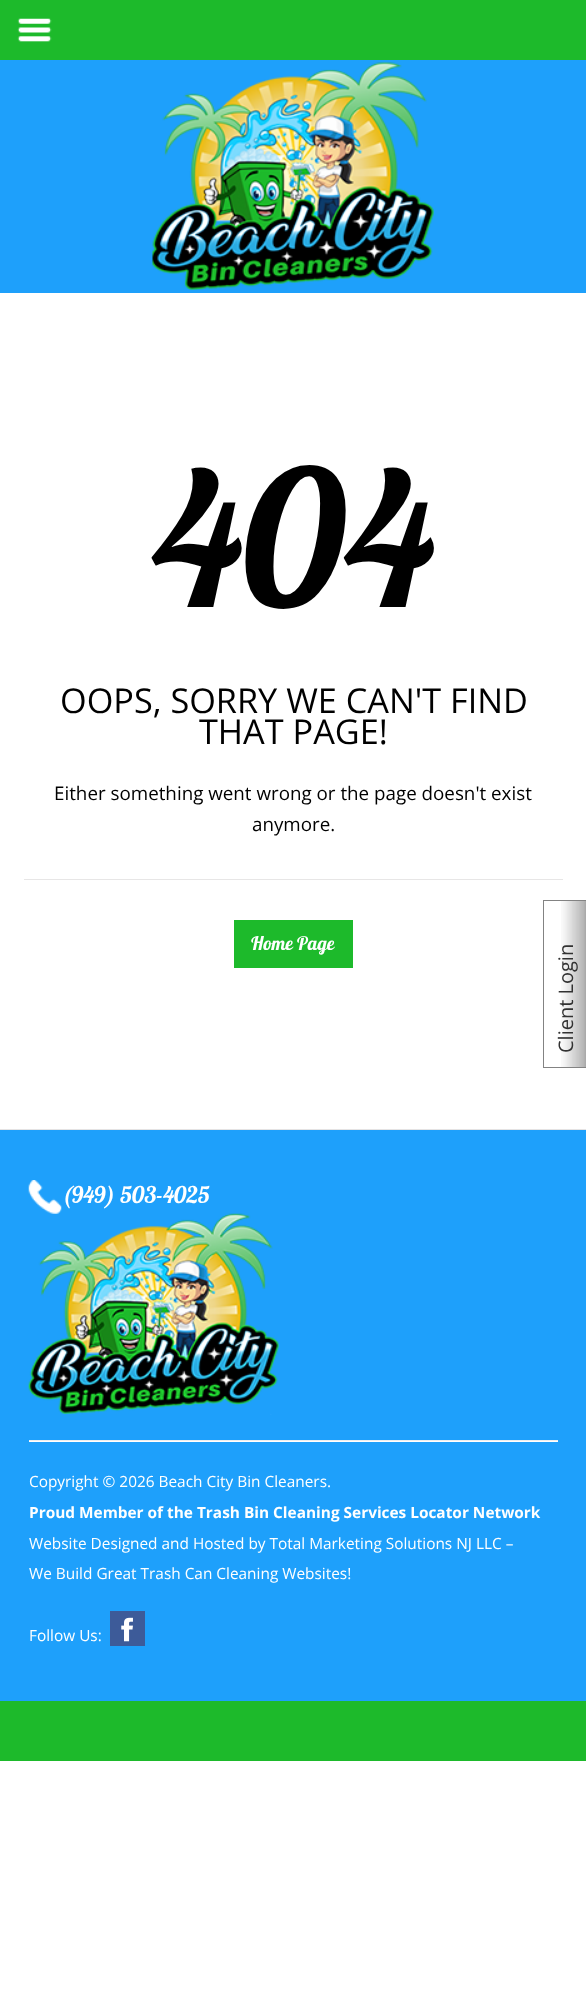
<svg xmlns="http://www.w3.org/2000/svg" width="586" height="2000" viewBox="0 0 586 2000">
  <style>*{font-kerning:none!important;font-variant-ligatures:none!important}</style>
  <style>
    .t1 { font: 188px Lobster; fill: #000; }
    .t2 { font: 34.25px Open Sans; fill: #000; }
    .t3 { font: 18.8px Open Sans; fill: #000; }
    .t4 { font: 18.75px Lobster; fill: #fff; }
    .t5 { font: 23px Lobster; fill: #fff; }
    .t6 { font: 15.4px Open Sans; fill: #fff; }
    .t7 { font: bold 15.4px Open Sans; fill: #fff; }
    .t8 { font: 20px Open Sans; fill: #323232; }
  </style>
  <rect width="100%" height="100%" fill="#fff"/>
  <rect x="0" y="0" width="586" height="60" fill="#1dba2b"/>
  <image x="17" y="18" width="35" height="24" href="images/1.png"/>
  <rect x="0" y="60" width="586" height="233" fill="#1ea0fb"/>
  <image x="152" y="62" width="282" height="228" href="images/2.png"/>
  <rect x="0" y="1129" width="586" height="1" fill="#e5e3e3"/>
  <text x="152" y="607" class="t1">404</text>
  <text x="60" y="713" class="t2">OOPS, SORRY WE CAN'T FIND</text>
  <text x="199" y="744" class="t2">THAT PAGE!</text>
  <rect x="24" y="879" width="539" height="1" fill="#e7e6e6"/>
  <text x="54" y="800" class="t3">Either something went wrong or the page doesn't exist</text>
  <text x="252" y="831" class="t3">anymore.</text>
  <rect x="234" y="920" width="119" height="48" fill="#1dba2b"/>
  <text x="251" y="950" class="t4">Home Page</text>
  <rect x="0" y="1130" width="586" height="571" fill="#1ea0fb"/>
  <image x="28" y="1180" width="34" height="34" href="images/3.png"/>
  <text x="62" y="1203" class="t5">(949) 503-4025</text>
  <image x="28" y="1213" width="251" height="202" href="images/4.png"/>
  <rect x="29" y="1440" width="529" height="1" fill="#eee"/>
  <rect x="29" y="1441" width="529" height="1" fill="#fff"/>
  <text x="29" y="1487" class="t6">Copyright © 2026 Beach City Bin Cleaners.</text>
  <text x="29" y="1518" class="t7">Proud Member of the Trash Bin Cleaning Services Locator Network</text>
  <text x="29" y="1549" class="t6">Website Designed and Hosted by Total Marketing Solutions NJ LLC –</text>
  <text x="29" y="1579" class="t6">We Build Great Trash Can Cleaning Websites!</text>
  <text x="29" y="1641" class="t6">Follow Us:</text>
  <rect x="110" y="1611" width="35" height="35" fill="#3d5b99"/>
  <image x="121" y="1617" width="12" height="25" href="images/5.png"/>
  <rect x="0" y="1701" width="586" height="60" fill="#1dba2b"/>
  <image x="561" y="901" width="25" height="166" href="images/6.png"/>
  <rect x="543.5" y="900.5" width="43" height="167" fill="none" stroke="#838383"/>
  <text x="573" y="1053" transform="rotate(-90 573 1053)" class="t8">Client Login</text>
</svg>
